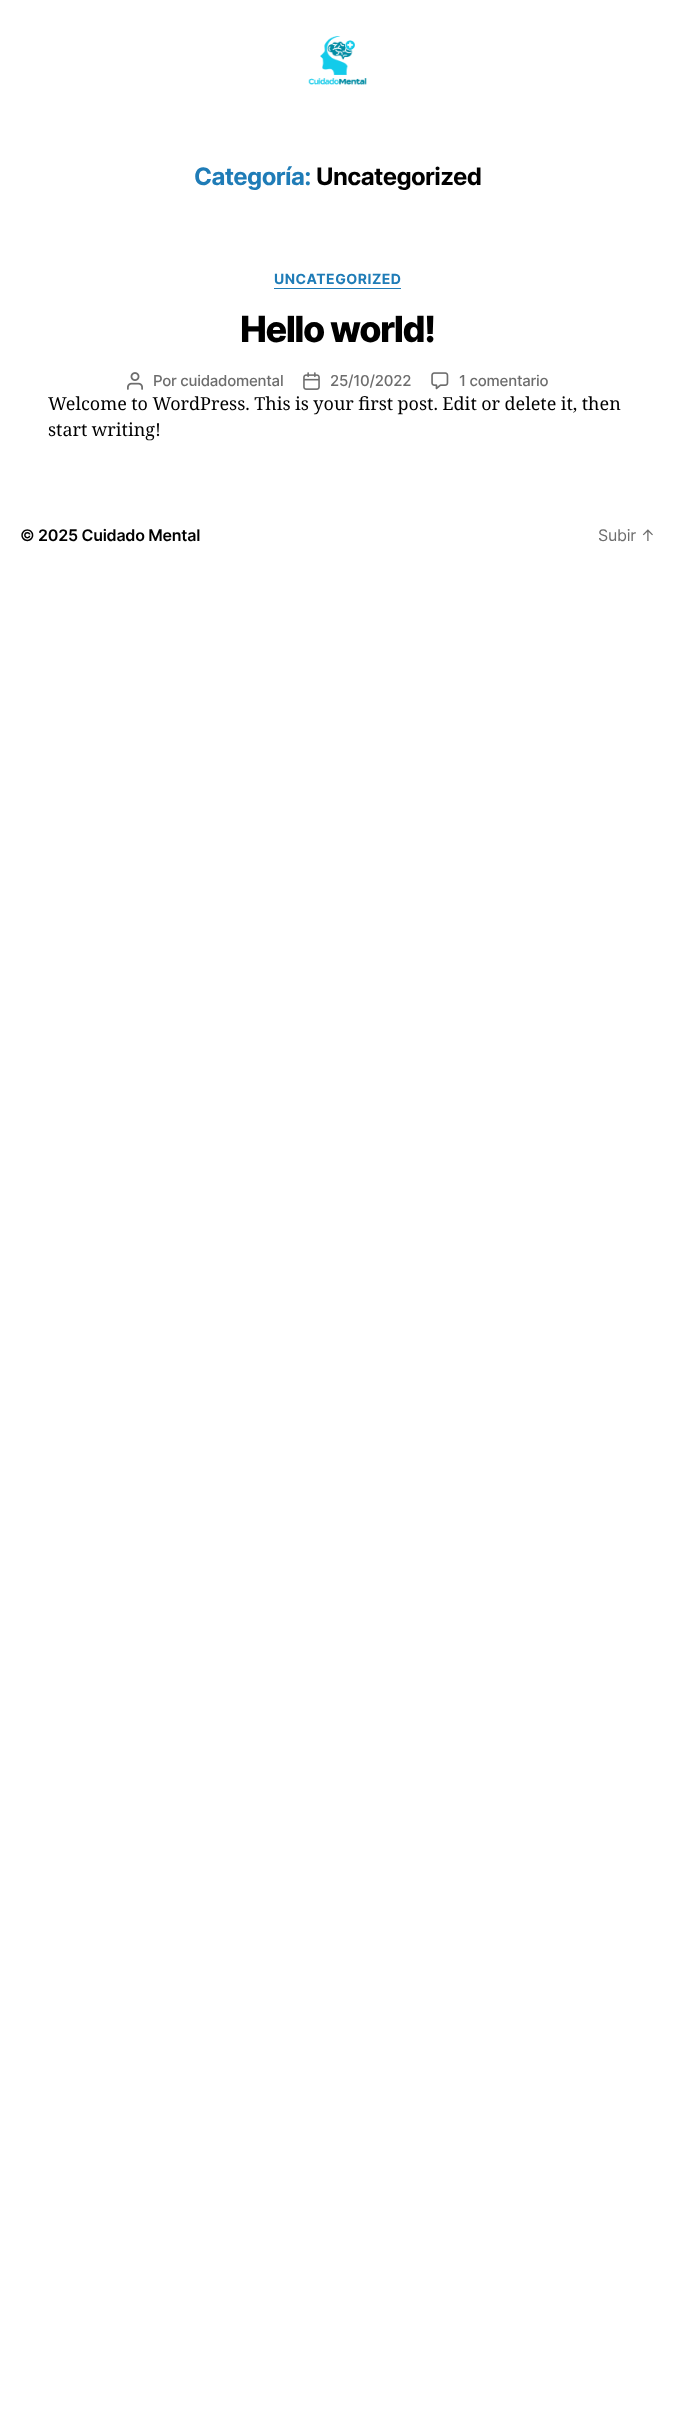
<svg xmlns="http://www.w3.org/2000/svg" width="675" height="2412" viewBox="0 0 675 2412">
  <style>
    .t1 { font: bold 24px Inter; letter-spacing: -0.6px; fill: #1f7cb7; }
    .t2 { font: bold 24px Inter; letter-spacing: -0.6px; fill: #000; }
    .t3 { font: bold 14px Inter; letter-spacing: 0.5px; fill: #1f7cb7; }
    .t4 { font: 800 36px Inter; letter-spacing: -1.5px; fill: #000; }
    .t5 { font: 500 15px Inter; letter-spacing: -0.25px; fill: #6d6d6d; }
    .t6 { font: 18px Noto Serif; fill: #000; }
    .t7 { font: 600 16px Inter; letter-spacing: -0.25px; fill: #000; }
    .t8 { font: 16px Inter; letter-spacing: -0.25px; fill: #6d6d6d; }
  </style>
  <rect width="100%" height="100%" fill="#fff"/>
  <image x="308" y="36" width="59" height="49" href="images/1.png"/>
  <text x="194" y="185" class="t1">Categoría:</text>
  <text x="316" y="185" class="t2">Uncategorized</text>
  <rect x="274" y="288" width="127" height="1" fill="#1f7cb7"/>
  <text x="274" y="284" class="t3">UNCATEGORIZED</text>
  <text x="240" y="342" class="t4">Hello world!</text>
  <image x="127" y="372" width="16" height="18" href="images/2.png"/>
  <text x="153" y="386" class="t5">Por cuidadomental</text>
  <image x="303" y="372" width="17" height="18" href="images/3.png"/>
  <text x="330" y="386" class="t5">25/10/2022</text>
  <image x="431" y="372" width="18" height="18" href="images/4.png"/>
  <text x="459" y="386" class="t5">1 comentario</text>
  <text x="48" y="410" word-spacing="-0.25" class="t6">Welcome to WordPress. This is your first post. Edit or delete it, then</text>
  <text x="48" y="436" word-spacing="-0.25" class="t6">start writing!</text>
  <text x="20" y="541" class="t7">© 2025 Cuidado Mental</text>
  <text x="598" y="541" class="t8">Subir ↑</text>
</svg>
